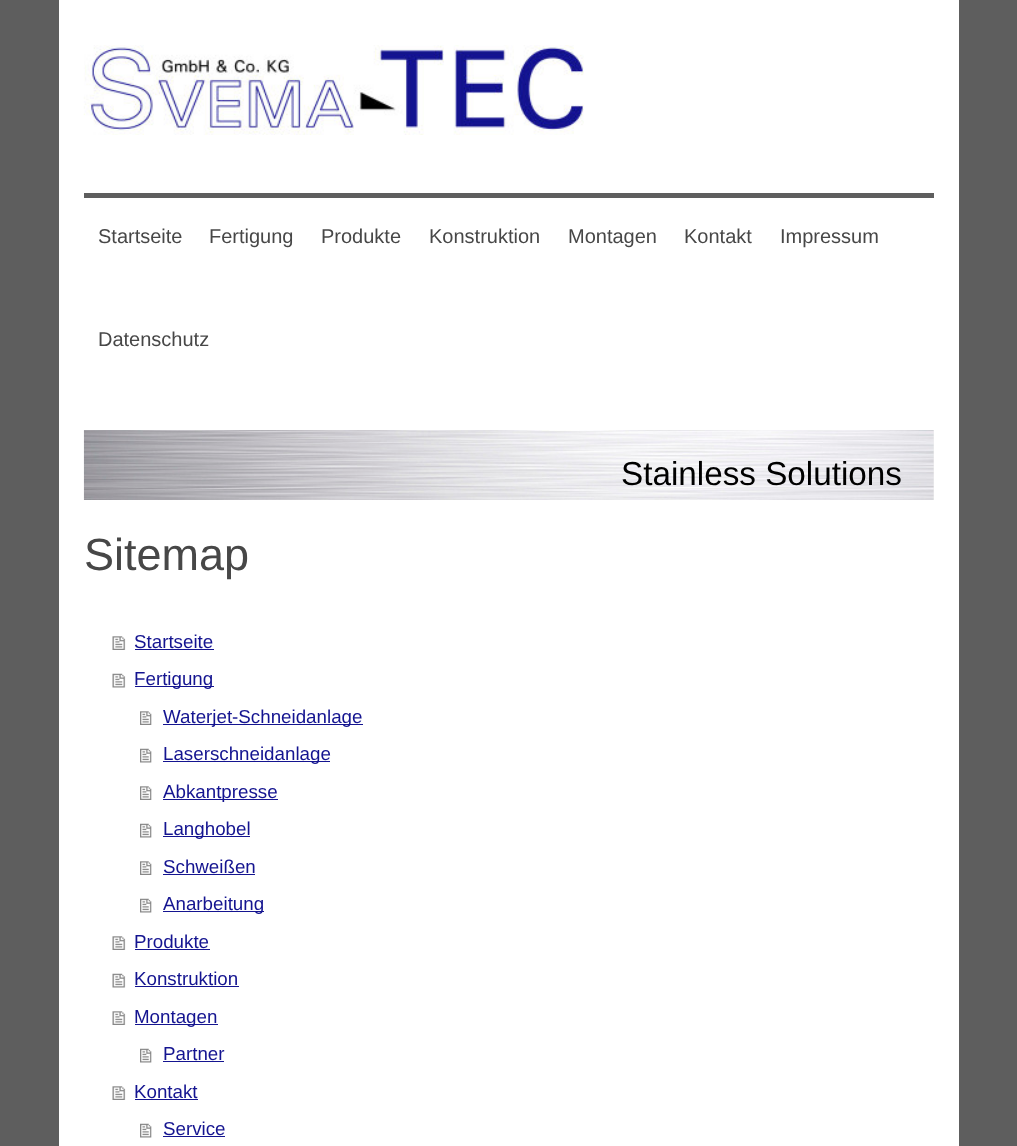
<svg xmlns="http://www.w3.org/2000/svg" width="1017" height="1146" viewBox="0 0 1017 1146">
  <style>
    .t1 { font: 20px Liberation Sans; fill: #474747; }
    .t2 { font: 33.25px Liberation Sans; fill: #000; }
    .t3 { font: 45px Liberation Sans; fill: #474747; }
    .t4 { font: 18.75px Liberation Sans; fill: #141490; }
  </style>
  <rect width="100%" height="100%" fill="#5e5e5e"/>
  <rect x="59" y="0" width="900" height="1146" fill="#fff"/>
  <image x="83" y="45" width="501" height="90" href="images/1.png"/>
  <rect x="84" y="193" width="850" height="5" fill="#5e5e5e"/>
  <text x="98" y="243" class="t1">Startseite</text>
  <text x="209" y="243" class="t1">Fertigung</text>
  <text x="321" y="243" class="t1">Produkte</text>
  <text x="429" y="243" class="t1">Konstruktion</text>
  <text x="568" y="243" class="t1">Montagen</text>
  <text x="684" y="243" class="t1">Kontakt</text>
  <text x="780" y="243" class="t1">Impressum</text>
  <text x="98" y="346" class="t1">Datenschutz</text>
  <rect x="933" y="430" width="1" height="70" fill="#eee"/>
  <image x="83" y="430" width="851" height="70" href="images/2.png"/>
  <text x="621" y="485" class="t2">Stainless Solutions</text>
  <text x="84" y="570" class="t3">Sitemap</text>
  <image x="112" y="636" width="14" height="14" href="images/3.png"/>
  <text x="134" y="648" class="t4">Startseite</text>
  <rect x="135" y="649" width="79" height="1" fill="#141490"/>
  <image x="112" y="673" width="14" height="15" href="images/4.png"/>
  <rect x="135" y="686" width="79" height="1" fill="#141490"/>
  <text x="134" y="685" class="t4">Fertigung</text>
  <image x="140" y="711" width="12" height="14" href="images/5.png"/>
  <rect x="163" y="724" width="200" height="1" fill="#141490"/>
  <text x="163" y="723" class="t4">Waterjet-Schneidanlage</text>
  <image x="140" y="748" width="12" height="15" href="images/6.png"/>
  <rect x="163" y="761" width="167" height="1" fill="#141490"/>
  <text x="163" y="760" class="t4">Laserschneidanlage</text>
  <image x="140" y="786" width="12" height="14" href="images/5.png"/>
  <rect x="163" y="799" width="115" height="1" fill="#141490"/>
  <text x="163" y="798" class="t4">Abkantpresse</text>
  <image x="140" y="823" width="12" height="15" href="images/6.png"/>
  <rect x="163" y="836" width="87" height="1" fill="#141490"/>
  <text x="163" y="835" class="t4">Langhobel</text>
  <image x="140" y="861" width="12" height="14" href="images/5.png"/>
  <text x="163" y="873" class="t4">Schweißen</text>
  <rect x="163" y="874" width="92" height="1" fill="#141490"/>
  <image x="140" y="898" width="12" height="15" href="images/6.png"/>
  <rect x="163" y="911" width="101" height="1" fill="#141490"/>
  <text x="163" y="910" class="t4">Anarbeitung</text>
  <image x="112" y="936" width="14" height="14" href="images/3.png"/>
  <text x="134" y="948" class="t4">Produkte</text>
  <rect x="135" y="949" width="75" height="1" fill="#141490"/>
  <image x="112" y="973" width="14" height="15" href="images/4.png"/>
  <text x="134" y="985" class="t4">Konstruktion</text>
  <rect x="135" y="986" width="104" height="1" fill="#141490"/>
  <image x="112" y="1011" width="14" height="14" href="images/3.png"/>
  <rect x="135" y="1024" width="83" height="1" fill="#141490"/>
  <text x="134" y="1023" class="t4">Montagen</text>
  <image x="140" y="1048" width="12" height="15" href="images/6.png"/>
  <text x="163" y="1060" class="t4">Partner</text>
  <rect x="163" y="1061" width="61" height="1" fill="#141490"/>
  <image x="112" y="1086" width="14" height="14" href="images/3.png"/>
  <text x="134" y="1098" class="t4">Kontakt</text>
  <rect x="135" y="1099" width="63" height="1" fill="#141490"/>
  <image x="140" y="1123" width="12" height="15" href="images/6.png"/>
  <text x="163" y="1135" class="t4">Service</text>
  <rect x="163" y="1136" width="62" height="1" fill="#141490"/>
</svg>
